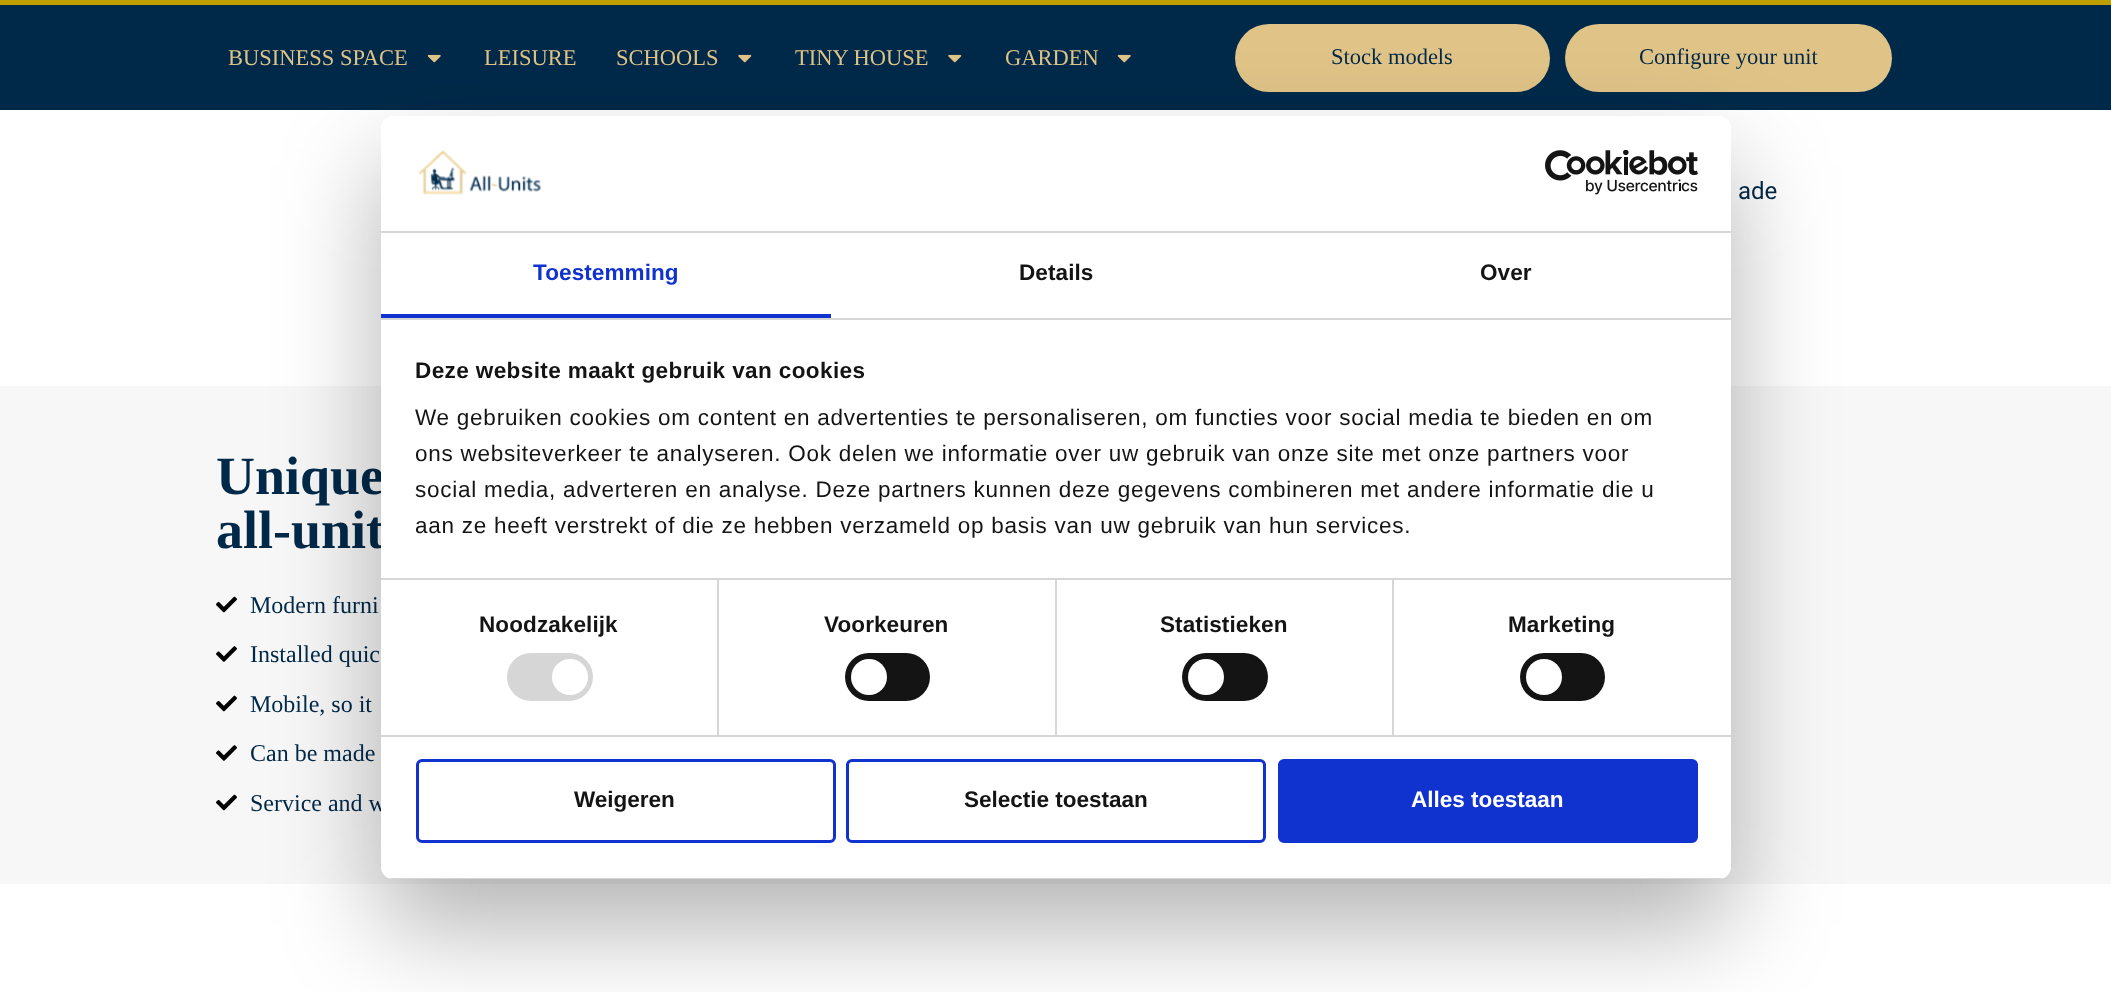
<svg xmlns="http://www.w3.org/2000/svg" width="2111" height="992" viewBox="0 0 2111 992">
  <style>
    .t1 { font: 22.5px Liberation Serif; fill: #e0c387; }
    .t2 { font: 22.5px Liberation Serif; fill: #002949; }
    .t3 { font: 24px Roboto; fill: #002949; }
    .t4 { font: bold 54px Liberation Serif; fill: #002949; }
    .t5 { font: 24px Liberation Serif; fill: #002949; }
    .t6 { font: bold 22.5px Liberation Sans; letter-spacing: 0.1px; fill: #1032cf; }
    .t7 { font: bold 22.5px Liberation Sans; letter-spacing: 0.1px; fill: #141414; }
    .t8 { font: bold 22.5px Liberation Sans; letter-spacing: 0.4px; fill: #141414; }
    .t9 { font: 22.5px Liberation Sans; letter-spacing: 0.75px; fill: #141414; }
    .t10 { font: bold 22.5px Liberation Sans; fill: #141414; }
    .t11 { font: bold 22.5px Liberation Sans; fill: #fff; }
  </style>
  <defs>
    <clipPath id="clip1"><rect x="381" y="116" width="1350" height="763" rx="12"/></clipPath>
  </defs>
  <rect width="100%" height="100%" fill="#fff"/>
  <rect x="0" y="5" width="2111" height="105" fill="#002949"/>
  <rect x="0" y="0" width="2111" height="5" fill="#bf9f00"/>
  <text x="228" y="65" class="t1">BUSINESS SPACE</text>
  <image x="427" y="54" width="14" height="9" href="images/1.png"/>
  <text x="484" y="65" class="t1">LEISURE</text>
  <text x="616" y="65" class="t1">SCHOOLS</text>
  <image x="738" y="54" width="14" height="9" href="images/2.png"/>
  <text x="795" y="65" class="t1">TINY HOUSE</text>
  <image x="948" y="54" width="14" height="9" href="images/2.png"/>
  <text x="1005" y="65" class="t1">GARDEN</text>
  <image x="1117" y="54" width="14" height="9" href="images/1.png"/>
  <rect x="1235" y="24" width="315" height="68" rx="34" fill="#e0c387"/>
  <text x="1331" y="64" class="t2">Stock models</text>
  <rect x="1565" y="24" width="327" height="68" rx="34" fill="#e0c387"/>
  <text x="1639" y="64" class="t2">Configure your unit</text>
  <text x="1738" y="199" class="t3">ade</text>
  <rect x="0" y="386" width="2111" height="498" fill="#f7f7f7"/>
  <text x="216" y="494" class="t4">Unique</text>
  <text x="216" y="548" class="t4">all-unit</text>
  <image x="216" y="596" width="21" height="17" href="images/3.png"/>
  <text x="250" y="613" class="t5">Modern furni</text>
  <image x="216" y="646" width="21" height="16" href="images/4.png"/>
  <text x="250" y="662" class="t5">Installed quic</text>
  <image x="216" y="695" width="21" height="17" href="images/3.png"/>
  <text x="250" y="712" class="t5">Mobile, so it</text>
  <image x="216" y="745" width="21" height="16" href="images/4.png"/>
  <text x="250" y="761" class="t5">Can be made</text>
  <image x="216" y="794" width="21" height="17" href="images/3.png"/>
  <text x="250" y="811" class="t5">Service and w</text>
  <rect x="381" y="164" width="1350" height="763" rx="12" fill="#0000004d" filter="blur(51px)"/>
  <rect x="381" y="116" width="1350" height="763" rx="12" fill="#fff"/>
  <rect x="381" y="231" width="1350" height="2" fill="#d6d6d6"/>
  <image x="418" y="150" width="124" height="45" href="images/5.png"/>
  <image x="1545" y="150" width="153" height="45" href="images/6.png"/>
  <rect x="381" y="318" width="1350" height="2" fill="#d6d6d6"/>
  <rect x="381" y="314" width="450" height="4" fill="#1032cf"/>
  <text x="533" y="280" class="t6">Toestemming</text>
  <text x="1019" y="280" class="t7">Details</text>
  <text x="1480" y="280" class="t7">Over</text>
  <rect x="717" y="579" width="2" height="156" fill="#d6d6d6"/>
  <rect x="1055" y="579" width="2" height="156" fill="#d6d6d6"/>
  <rect x="1392" y="579" width="2" height="156" fill="#d6d6d6"/>
  <rect x="381" y="578" width="1350" height="2" fill="#d6d6d6"/>
  <text x="415" y="378" class="t8">Deze website maakt gebruik van cookies</text>
  <text x="415" y="425" class="t9">We gebruiken cookies om content en advertenties te personaliseren, om functies voor social media te bieden en om</text>
  <text x="415" y="461" class="t9">ons websiteverkeer te analyseren. Ook delen we informatie over uw gebruik van onze site met onze partners voor</text>
  <text x="415" y="497" class="t9">social media, adverteren en analyse. Deze partners kunnen deze gegevens combineren met andere informatie die u</text>
  <text x="415" y="533" class="t9">aan ze heeft verstrekt of die ze hebben verzameld op basis van uw gebruik van hun services.</text>
  <rect x="381" y="735" width="1350" height="2" fill="#d6d6d6"/>
  <text x="479" y="632" class="t7">Noodzakelijk</text>
  <rect x="507" y="653" width="86" height="48" rx="24" fill="#d6d6d6"/>
  <circle cx="570" cy="677" r="18" fill="#fff"/>
  <text x="824" y="632" class="t7">Voorkeuren</text>
  <rect x="845" y="653" width="85" height="48" rx="24" fill="#141414"/>
  <circle cx="869" cy="677" r="18" fill="#fff"/>
  <text x="1160" y="632" class="t7">Statistieken</text>
  <rect x="1182" y="653" width="86" height="48" rx="24" fill="#141414"/>
  <circle cx="1206" cy="677" r="18" fill="#fff"/>
  <text x="1508" y="632" class="t7">Marketing</text>
  <rect x="1520" y="653" width="85" height="48" rx="24" fill="#141414"/>
  <circle cx="1544" cy="677" r="18" fill="#fff"/>
  <g clip-path="url(#clip1)">
    <rect x="381" y="878" width="1350" height="1" fill="#d6d6d6"/>
  </g>
  <rect x="417.5" y="760.5" width="417" height="81" rx="4.5" fill="none" stroke="#1032cf" stroke-width="3"/>
  <text x="574" y="807" class="t10">Weigeren</text>
  <rect x="847.5" y="760.5" width="417" height="81" rx="4.5" fill="none" stroke="#1032cf" stroke-width="3"/>
  <text x="964" y="807" class="t10">Selectie toestaan</text>
  <rect x="1279.5" y="760.5" width="417" height="81" rx="4.5" fill="#1032cf" stroke="#1032cf" stroke-width="3"/>
  <text x="1411" y="807" class="t11">Alles toestaan</text>
</svg>
